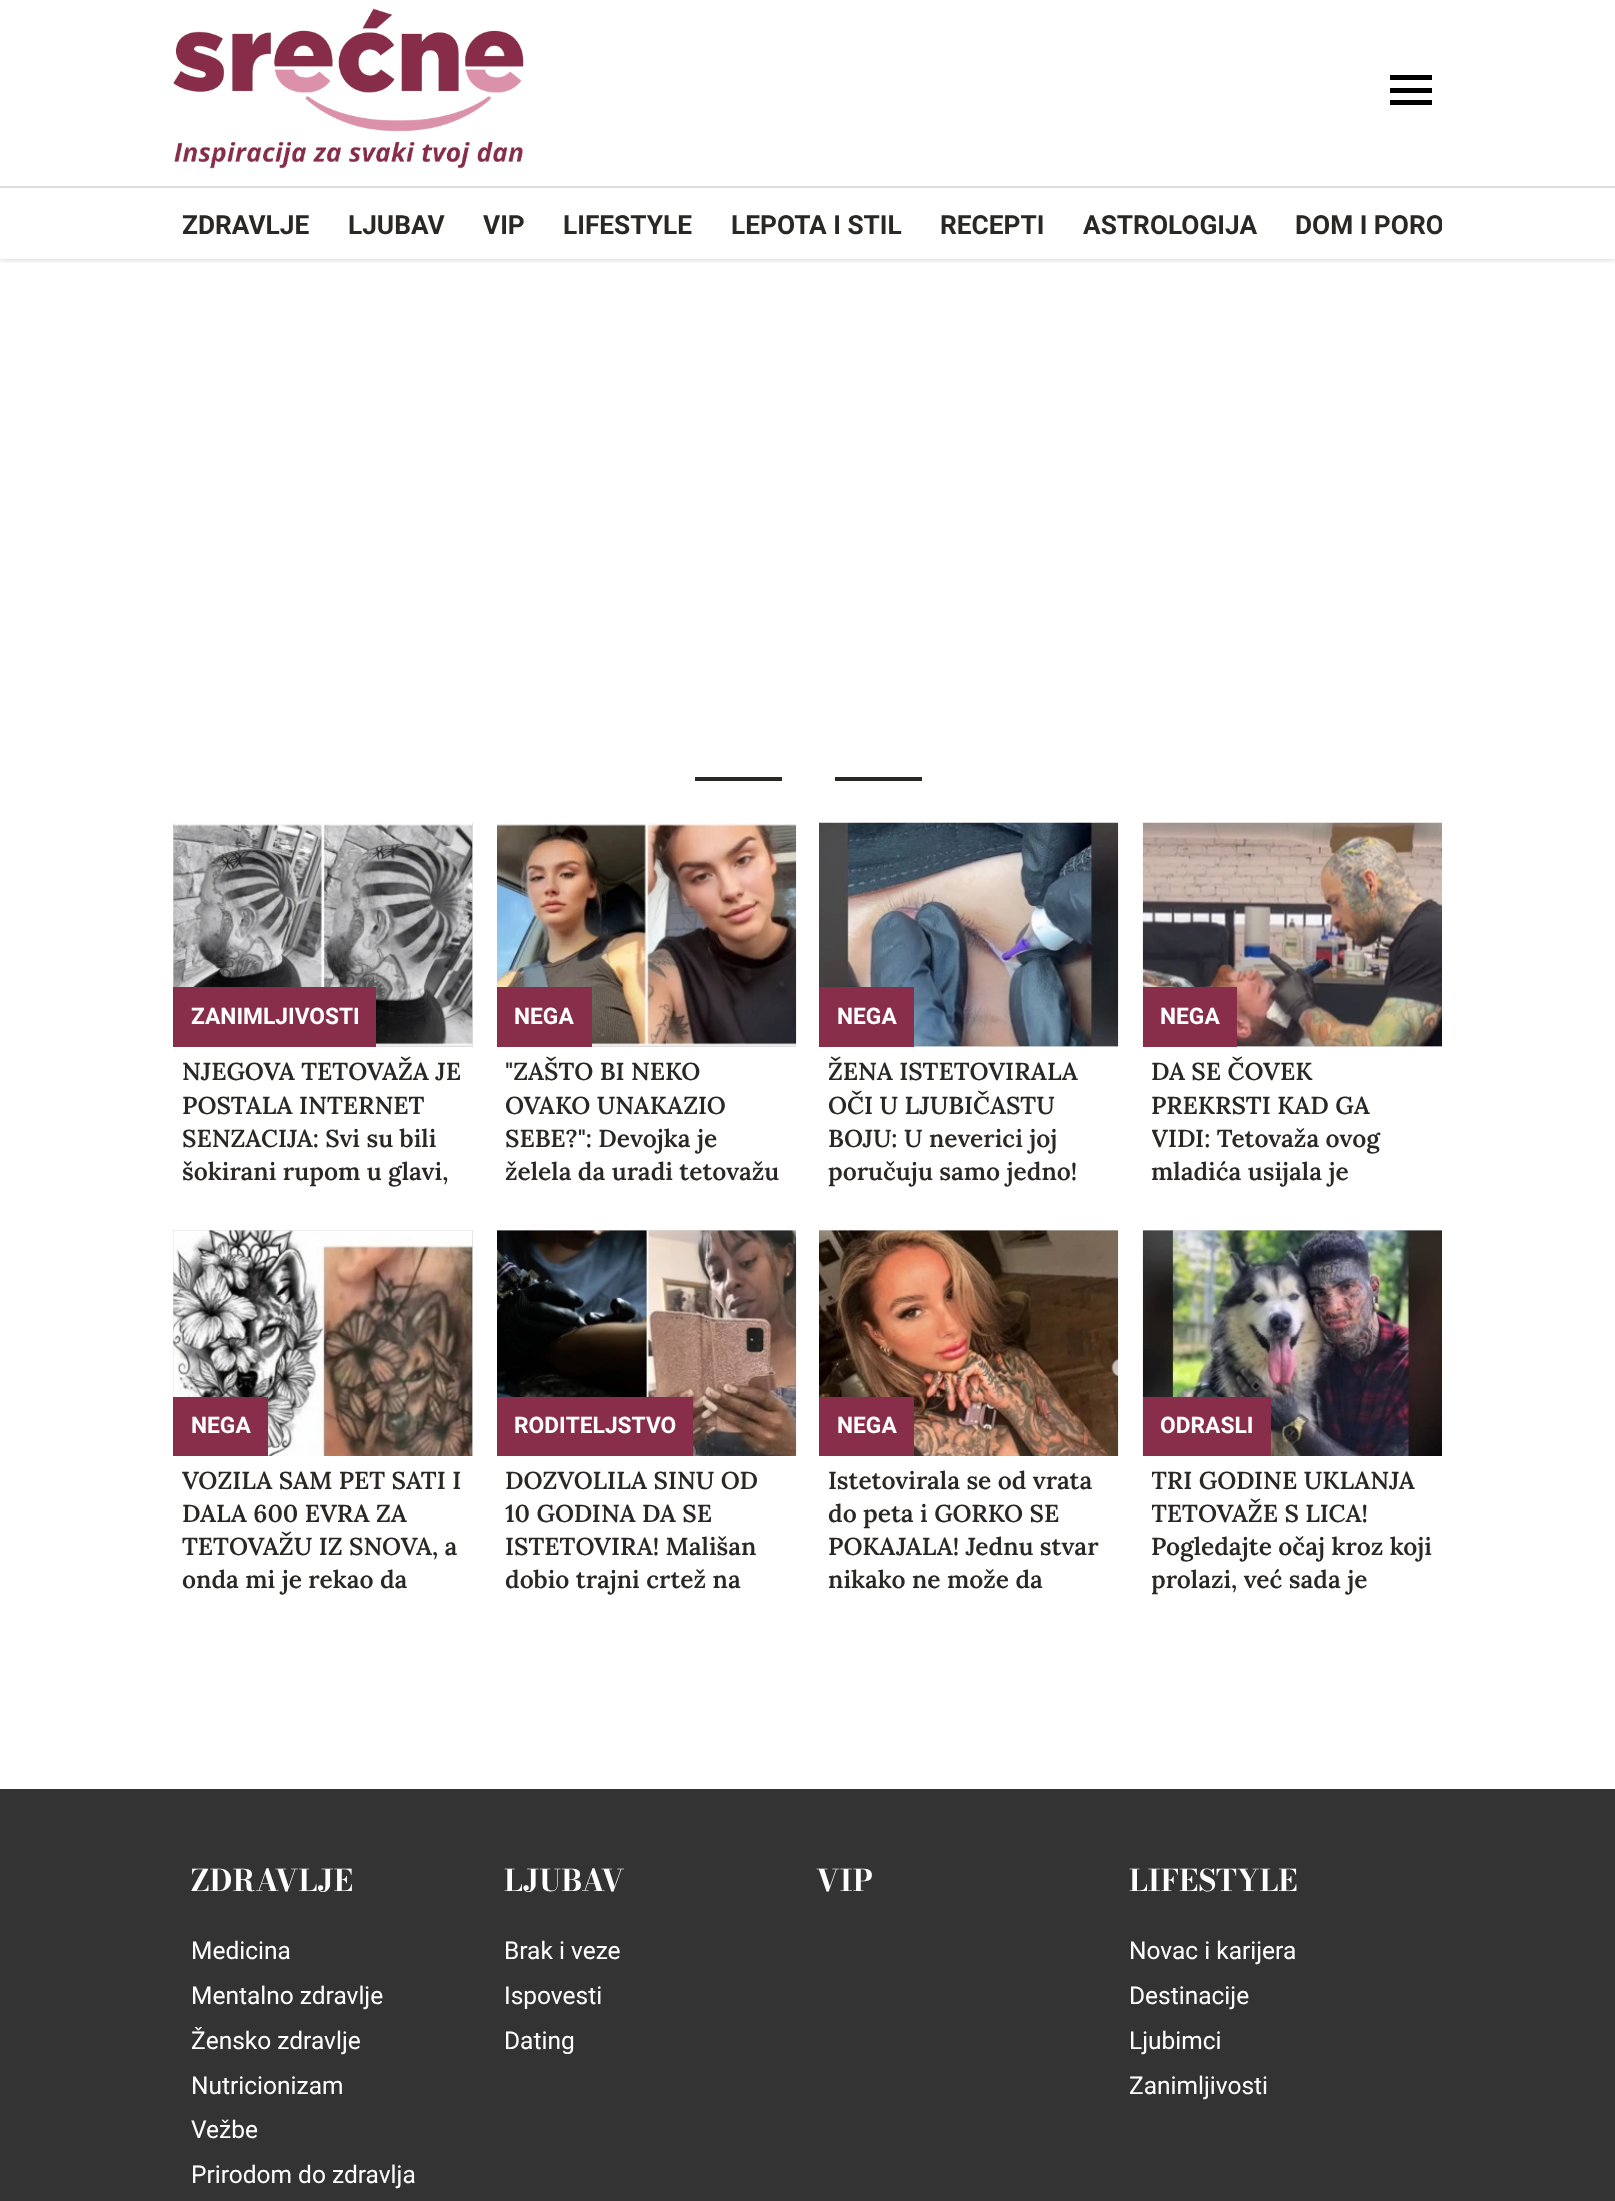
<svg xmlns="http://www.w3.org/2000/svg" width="1615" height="2201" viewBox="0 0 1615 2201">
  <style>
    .t1 { font: bold 26.25px Roboto; fill: #2a2825; }
    .t2 { font: bold 22.75px Heebo; fill: #fff; }
    .t3 { font: 600 24.5px Lora; fill: #2a2825; }
    .t4 { font: bold 29.75px Bodoni Moda; fill: #fff; }
    .t5 { font: 24.5px Roboto; fill: #fff; }
  </style>
  <defs>
    <clipPath id="clip1"><rect x="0" y="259" width="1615" height="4"/></clipPath>
    <clipPath id="clip2"><rect x="173" y="187" width="1269" height="74"/></clipPath>
    <clipPath id="clip3"><rect x="1152" y="1055" width="281" height="133"/></clipPath>
    <clipPath id="clip4"><rect x="1152" y="1465" width="281" height="133"/></clipPath>
  </defs>
  <rect width="100%" height="100%" fill="#fff"/>
  <g clip-path="url(#clip1)">
    <rect x="0" y="0" width="1615" height="259" fill="#00000033" filter="blur(3.5px)"/>
  </g>
  <rect x="0" y="186" width="1615" height="2" fill="#ddd"/>
  <image x="173" y="8" width="351" height="161" href="images/1.png"/>
  <rect x="1390" y="75" width="42" height="5" fill="#000"/>
  <rect x="1390" y="88" width="42" height="5" fill="#000"/>
  <rect x="1390" y="100" width="42" height="5" fill="#000"/>
  <text x="182" y="234" class="t1">ZDRAVLJE</text>
  <text x="348" y="234" class="t1">LJUBAV</text>
  <text x="483" y="234" class="t1">VIP</text>
  <text x="563" y="234" class="t1">LIFESTYLE</text>
  <text x="731" y="234" class="t1">LEPOTA I STIL</text>
  <text x="940" y="234" class="t1">RECEPTI</text>
  <text x="1083" y="234" class="t1">ASTROLOGIJA</text>
  <g clip-path="url(#clip2)">
    <text x="1295" y="234" class="t1">DOM I PORO</text>
  </g>
  <rect x="695" y="777" width="87" height="4" fill="#2a2825"/>
  <rect x="835" y="777" width="87" height="4" fill="#2a2825"/>
  <rect x="173" y="823" width="300" height="224" fill="#ddd"/>
  <image x="173" y="823" width="300" height="223" href="images/2.png"/>
  <rect x="173" y="987" width="203" height="60" fill="#882d4a"/>
  <text x="191" y="1024" class="t2">ZANIMLJIVOSTI</text>
  <text x="182" y="1080" class="t3">NJEGOVA TETOVAŽA JE</text>
  <text x="182" y="1114" class="t3">POSTALA INTERNET</text>
  <text x="182" y="1147" class="t3">SENZACIJA: Svi su bili</text>
  <text x="182" y="1180" class="t3">šokirani rupom u glavi,</text>
  <rect x="592" y="1046" width="204" height="1" fill="#ddd"/>
  <image x="497" y="823" width="300" height="223" href="images/3.png"/>
  <rect x="497" y="987" width="95" height="60" fill="#882d4a"/>
  <text x="514" y="1024" class="t2">NEGA</text>
  <text x="505" y="1080" class="t3">"ZAŠTO BI NEKO</text>
  <text x="505" y="1114" class="t3">OVAKO UNAKAZIO</text>
  <text x="505" y="1147" class="t3">SEBE?": Devojka je</text>
  <text x="505" y="1180" class="t3">želela da uradi tetovažu</text>
  <rect x="914" y="1046" width="204" height="1" fill="#ddd"/>
  <image x="819" y="822" width="300" height="225" href="images/4.png"/>
  <rect x="819" y="987" width="95" height="60" fill="#882d4a"/>
  <text x="837" y="1024" class="t2">NEGA</text>
  <text x="828" y="1080" class="t3">ŽENA ISTETOVIRALA</text>
  <text x="828" y="1114" class="t3">OČI U LJUBIČASTU</text>
  <text x="828" y="1147" class="t3">BOJU: U neverici joj</text>
  <text x="828" y="1180" class="t3">poručuju samo jedno!</text>
  <rect x="1237" y="1046" width="205" height="1" fill="#ddd"/>
  <image x="1142" y="822" width="300" height="225" href="images/5.png"/>
  <rect x="1143" y="987" width="94" height="60" fill="#882d4a"/>
  <text x="1160" y="1024" class="t2">NEGA</text>
  <text x="1151" y="1080" class="t3">DA SE ČOVEK</text>
  <text x="1151" y="1114" class="t3">PREKRSTI KAD GA</text>
  <g clip-path="url(#clip3)">
    <text x="1151" y="1147" class="t3">VIDI: Tetovaža ovog</text>
  </g>
  <text x="1151" y="1180" class="t3">mladića usijala je</text>
  <rect x="173" y="1230" width="300" height="226" fill="#ddd"/>
  <image x="173" y="1230" width="300" height="226" href="images/6.png"/>
  <rect x="173" y="1397" width="95" height="59" fill="#882d4a"/>
  <text x="191" y="1433" class="t2">NEGA</text>
  <text x="182" y="1489" class="t3">VOZILA SAM PET SATI I</text>
  <text x="182" y="1522" class="t3">DALA 600 EVRA ZA</text>
  <text x="182" y="1555" class="t3">TETOVAŽU IZ SNOVA, a</text>
  <text x="182" y="1588" class="t3">onda mi je rekao da</text>
  <rect x="497" y="1230" width="299" height="1" fill="#ddd"/>
  <image x="497" y="1230" width="300" height="226" href="images/7.png"/>
  <rect x="497" y="1397" width="196" height="59" fill="#882d4a"/>
  <text x="514" y="1433" class="t2">RODITELJSTVO</text>
  <text x="505" y="1489" class="t3">DOZVOLILA SINU OD</text>
  <text x="505" y="1522" class="t3">10 GODINA DA SE</text>
  <text x="505" y="1555" class="t3">ISTETOVIRA! Mališan</text>
  <text x="505" y="1588" class="t3">dobio trajni crtež na</text>
  <rect x="819" y="1230" width="299" height="1" fill="#ddd"/>
  <image x="819" y="1230" width="300" height="226" href="images/8.png"/>
  <rect x="819" y="1397" width="95" height="59" fill="#882d4a"/>
  <text x="837" y="1433" class="t2">NEGA</text>
  <text x="828" y="1489" class="t3">Istetovirala se od vrata</text>
  <text x="828" y="1522" class="t3">do peta i GORKO SE</text>
  <text x="828" y="1555" class="t3">POKAJALA! Jednu stvar</text>
  <text x="828" y="1588" class="t3">nikako ne može da</text>
  <rect x="1143" y="1230" width="299" height="1" fill="#ddd"/>
  <image x="1142" y="1230" width="300" height="226" href="images/9.png"/>
  <rect x="1143" y="1397" width="128" height="59" fill="#882d4a"/>
  <text x="1160" y="1433" class="t2">ODRASLI</text>
  <g clip-path="url(#clip4)">
    <text x="1151" y="1489" class="t3">TRI GODINE UKLANJA</text>
    <text x="1151" y="1522" class="t3">TETOVAŽE S LICA!</text>
  </g>
  <text x="1151" y="1555" class="t3">Pogledajte očaj kroz koji</text>
  <g clip-path="url(#clip4)">
    <text x="1151" y="1588" class="t3">prolazi, već sada je</text>
  </g>
  <rect x="0" y="1789" width="1615" height="412" fill="#333"/>
  <text x="191" y="1891" class="t4">ZDRAVLJE</text>
  <text x="191" y="1959" class="t5">Medicina</text>
  <text x="191" y="2004" class="t5">Mentalno zdravlje</text>
  <text x="191" y="2049" class="t5">Žensko zdravlje</text>
  <text x="191" y="2094" class="t5">Nutricionizam</text>
  <text x="191" y="2138" class="t5">Vežbe</text>
  <text x="191" y="2183" class="t5">Prirodom do zdravlja</text>
  <text x="504" y="1891" class="t4">LJUBAV</text>
  <text x="504" y="1959" class="t5">Brak i veze</text>
  <text x="504" y="2004" class="t5">Ispovesti</text>
  <text x="504" y="2049" class="t5">Dating</text>
  <text x="816" y="1891" class="t4">VIP</text>
  <text x="1129" y="1891" class="t4">LIFESTYLE</text>
  <text x="1129" y="1959" class="t5">Novac i karijera</text>
  <text x="1129" y="2004" class="t5">Destinacije</text>
  <text x="1129" y="2049" class="t5">Ljubimci</text>
  <text x="1129" y="2094" class="t5">Zanimljivosti</text>
</svg>
